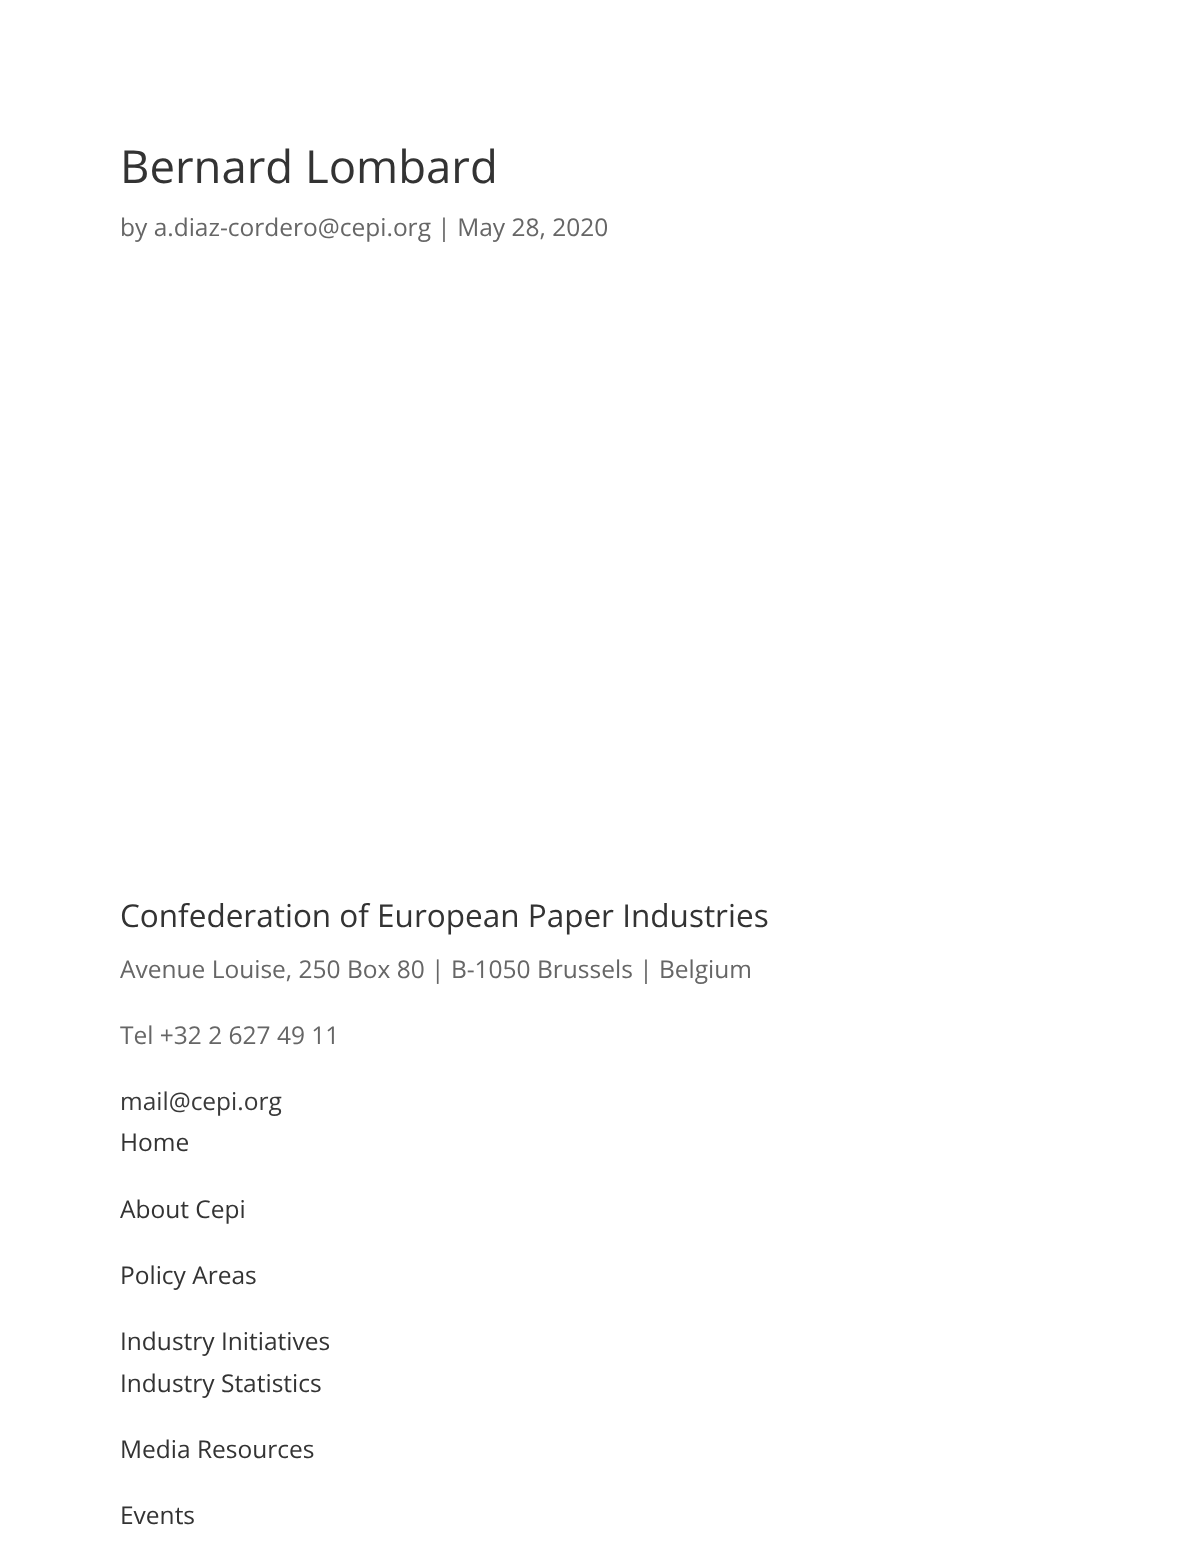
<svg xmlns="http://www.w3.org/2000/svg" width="1197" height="1545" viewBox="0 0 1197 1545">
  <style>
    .t1 { font: 45.5px Open Sans; fill: #333; }
    .t2 { font: 24.5px Open Sans; fill: #666; }
    .t3 { font: 31.5px Open Sans; fill: #333; }
    .t4 { font: 24.5px Open Sans; fill: #393939; }
    .t5 { font: 24.5px Open Sans; fill: #333; }
  </style>
  <rect width="100%" height="100%" fill="#fff"/>
  <text x="120" y="183" class="t1">Bernard Lombard</text>
  <text x="120" y="236" class="t2">by a.diaz-cordero@cepi.org | May 28, 2020</text>
  <text x="120" y="927" class="t3">Confederation of European Paper Industries</text>
  <text x="120" y="978" class="t2">Avenue Louise, 250 Box 80 | B-1050 Brussels | Belgium</text>
  <text x="120" y="1044" class="t2">Tel +32 2 627 49 11</text>
  <text x="120" y="1110" class="t4">mail@cepi.org</text>
  <text x="120" y="1151" class="t5">Home</text>
  <text x="120" y="1218" class="t5">About Cepi</text>
  <text x="120" y="1284" class="t5">Policy Areas</text>
  <text x="120" y="1350" class="t5">Industry Initiatives</text>
  <text x="120" y="1392" class="t5">Industry Statistics</text>
  <text x="120" y="1458" class="t5">Media Resources</text>
  <text x="120" y="1524" class="t5">Events</text>
</svg>
